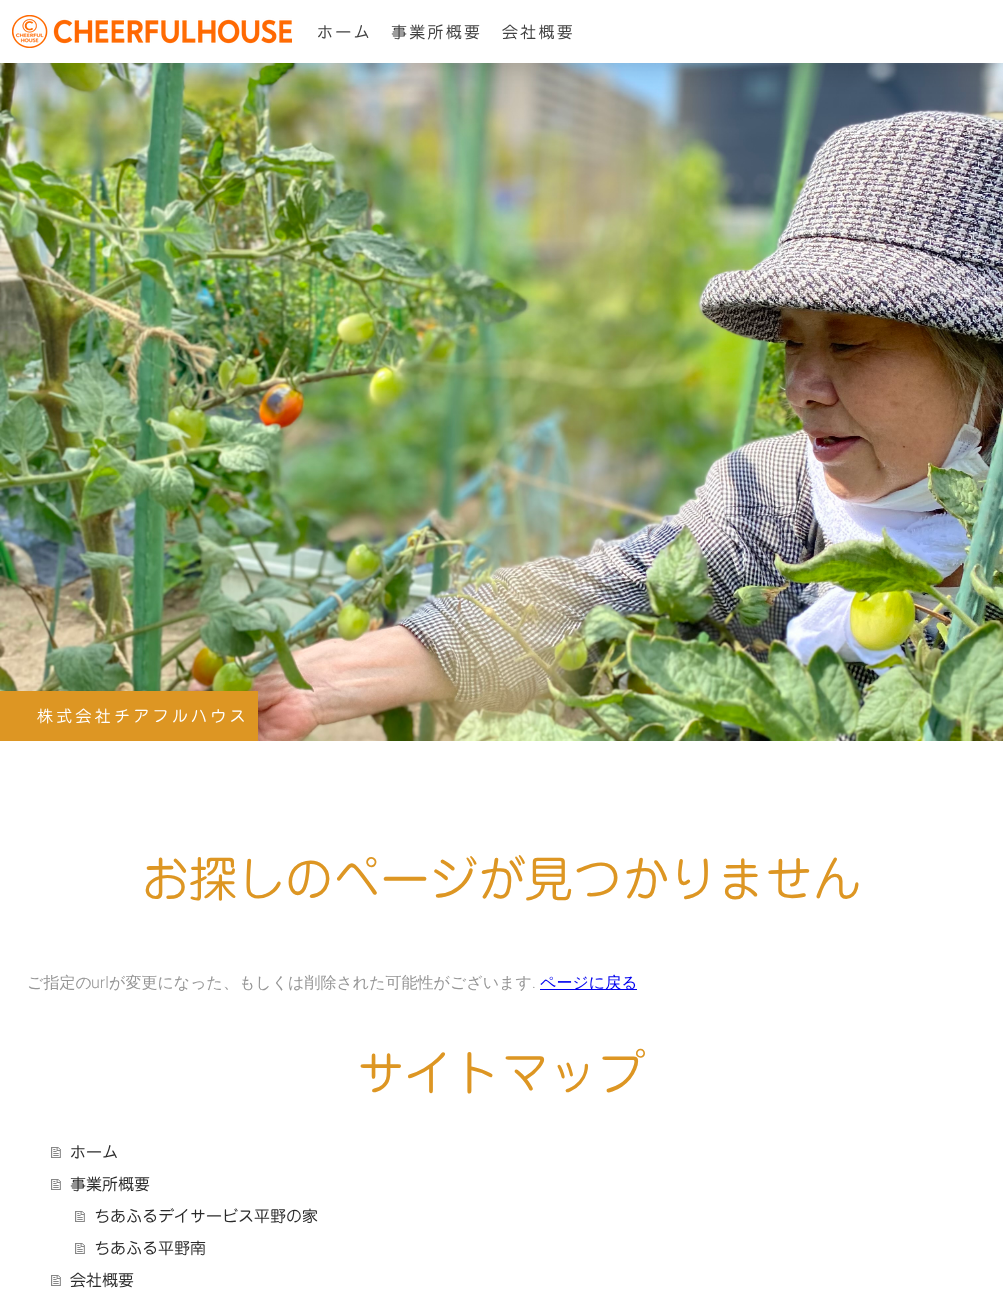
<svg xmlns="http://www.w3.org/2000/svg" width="1003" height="1300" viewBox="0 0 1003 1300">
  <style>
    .t1 { font: 16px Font; letter-spacing: 2.25px; fill: #404040; }
    .t2 { font: 16px Font; letter-spacing: 3.25px; fill: #fff; }
    .t3 { font: 48px Font; fill: #dd9623; }
    .t4 { font: 500 16px WenQuanYi Zen Hei; fill: #969696; }
    .t5 { font: 300 16px Roboto; fill: #969696; }
    .t6 { font: 500 16px WenQuanYi Zen Hei; fill: #00e; }
    .t7 { font: 16px Font; fill: #2a2a2a; }
  </style>
  <rect width="100%" height="100%" fill="#fff"/>
  <image x="0" y="63" width="1003" height="678" href="images/2.png"/>
  <rect x="0" y="0" width="1003" height="63" fill="#00000033" filter="blur(15px)"/>
  <rect x="0" y="0" width="1003" height="63" fill="#fff"/>
  <image x="12" y="15" width="280" height="33" href="images/1.png"/>
  <text x="317" y="38" class="t1">ホーム</text>
  <text x="391" y="38" class="t1">事業所概要</text>
  <text x="502" y="38" class="t1">会社概要</text>
  <rect x="0" y="691" width="258" height="50" fill="#dd9623"/>
  <text x="37" y="722" class="t2">株式会社チアフルハウス</text>
  <text x="141" y="897" class="t3">お探しのページが見つかりません</text>
  <text x="27" y="988" class="t4">ご指定の</text>
  <text x="91" y="988" class="t5">url</text>
  <text x="109" y="988" class="t4">が変更になった、もしくは削除された可能性がございます</text>
  <text x="532" y="988" class="t5">.</text>
  <rect x="540" y="989" width="97" height="1" fill="#00e"/>
  <text x="540" y="988" class="t6">ページに戻る</text>
  <text x="357" y="1091" class="t3">サイトマップ</text>
  <image x="51" y="1147" width="10" height="11" href="images/3.png"/>
  <text x="70" y="1158" class="t7">ホーム</text>
  <image x="51" y="1179" width="10" height="11" href="images/3.png"/>
  <text x="70" y="1190" class="t7">事業所概要</text>
  <image x="75" y="1211" width="10" height="11" href="images/3.png"/>
  <text x="94" y="1222" class="t7">ちあふるデイサービス平野の家</text>
  <image x="75" y="1243" width="10" height="11" href="images/3.png"/>
  <text x="94" y="1254" class="t7">ちあふる平野南</text>
  <image x="51" y="1275" width="10" height="11" href="images/3.png"/>
  <text x="70" y="1286" class="t7">会社概要</text>
</svg>
